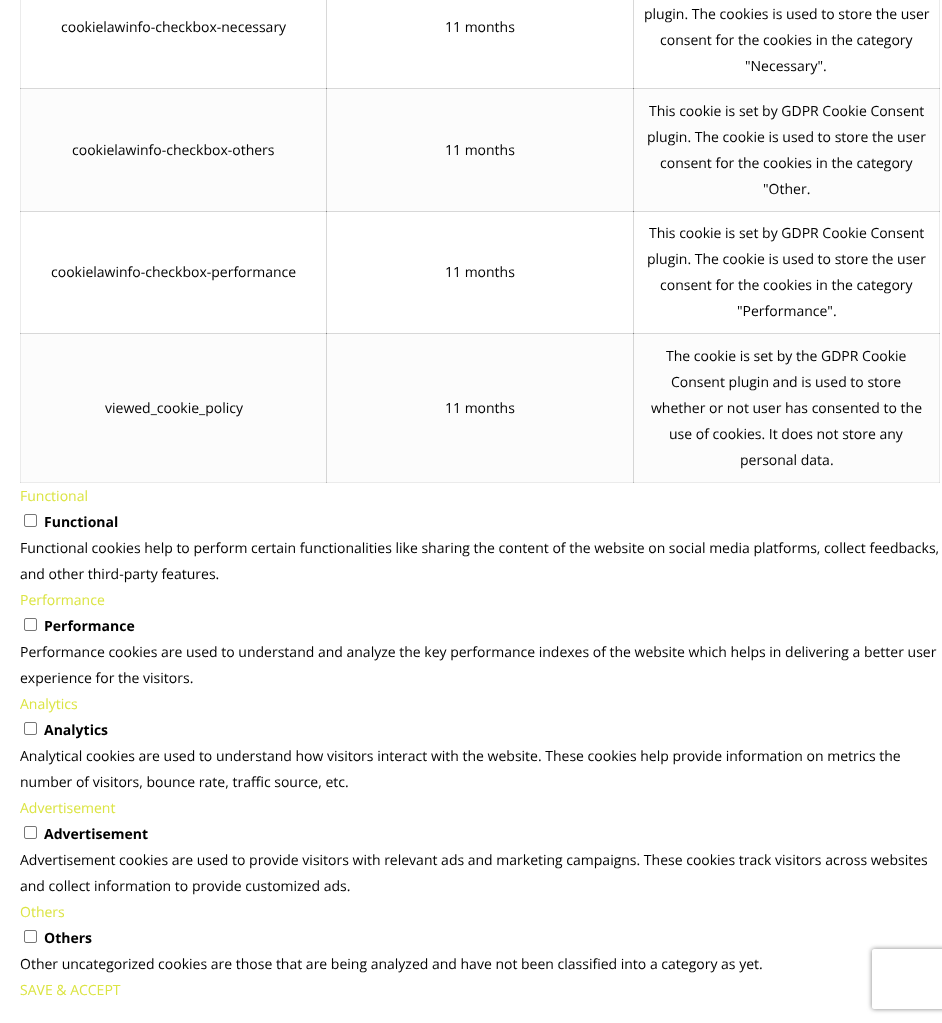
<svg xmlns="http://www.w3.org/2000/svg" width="942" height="1023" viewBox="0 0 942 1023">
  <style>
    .t1 { font: 14px Open Sans; fill: #000; }
    .t2 { font: 14px Open Sans; fill: #dbe442; }
    .t3 { font: bold 14px Open Sans; fill: #000; }
  </style>
  <defs>
    <clipPath id="clip1"><path d="M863 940H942V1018H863ZM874 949H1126C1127 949 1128 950 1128 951V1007C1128 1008 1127 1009 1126 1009H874C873 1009 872 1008 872 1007V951C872 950 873 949 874 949Z" clip-rule="evenodd"/></clipPath>
  </defs>
  <rect width="100%" height="100%" fill="#fff"/>
  <rect x="20" y="0" width="1" height="483" fill="#ebebeb"/>
  <rect x="326" y="0" width="1" height="89" fill="#d8d8d8"/>
  <rect x="633" y="0" width="1" height="89" fill="#d8d8d8"/>
  <rect x="939" y="0" width="1" height="89" fill="#ebebeb"/>
  <rect x="20" y="88" width="920" height="1" fill="#d8d8d8"/>
  <rect x="20" y="88" width="1" height="1" fill="#b7b7b7"/>
  <rect x="326" y="88" width="1" height="1" fill="#848484"/>
  <rect x="20" y="211" width="307" height="1" fill="#d8d8d8"/>
  <rect x="20" y="211" width="1" height="1" fill="#b7b7b7"/>
  <rect x="326" y="211" width="1" height="123" fill="#d8d8d8"/>
  <rect x="326" y="211" width="308" height="1" fill="#d8d8d8"/>
  <rect x="326" y="211" width="1" height="1" fill="#848484"/>
  <rect x="633" y="211" width="1" height="123" fill="#d8d8d8"/>
  <rect x="939" y="211" width="1" height="123" fill="#ebebeb"/>
  <rect x="20" y="482" width="920" height="1" fill="#ebebeb"/>
  <rect x="20" y="482" width="1" height="1" fill="#d8d8d8"/>
  <rect x="20" y="333" width="920" height="1" fill="#d8d8d8"/>
  <rect x="20" y="333" width="1" height="1" fill="#b7b7b7"/>
  <rect x="326" y="482" width="1" height="1" fill="#b7b7b7"/>
  <rect x="326" y="333" width="1" height="1" fill="#848484"/>
  <rect x="633" y="482" width="1" height="1" fill="#b7b7b7"/>
  <rect x="939" y="482" width="1" height="1" fill="#d8d8d8"/>
  <text x="61" y="32" class="t1">cookielawinfo-checkbox-necessary</text>
  <text x="445" y="32" class="t1">11 months</text>
  <text x="644" y="19" class="t1">plugin. The cookies is used to store the user</text>
  <text x="660" y="45" class="t1">consent for the cookies in the category</text>
  <text x="745" y="71" class="t1">"Necessary".</text>
  <rect x="21" y="89" width="305" height="122" fill="#fcfcfc"/>
  <rect x="326" y="89" width="1" height="122" fill="#d5d5d5"/>
  <text x="72" y="155" class="t1">cookielawinfo-checkbox-others</text>
  <rect x="327" y="89" width="306" height="122" fill="#fcfcfc"/>
  <text x="445" y="155" class="t1">11 months</text>
  <rect x="634" y="89" width="305" height="122" fill="#fcfcfc"/>
  <rect x="633" y="89" width="1" height="122" fill="#d5d5d5"/>
  <rect x="939" y="89" width="1" height="122" fill="#e8e8e8"/>
  <rect x="633" y="88" width="1" height="1" fill="#848484"/>
  <rect x="939" y="88" width="1" height="1" fill="#b7b7b7"/>
  <text x="649" y="116" class="t1">This cookie is set by GDPR Cookie Consent</text>
  <text x="647" y="142" class="t1">plugin. The cookie is used to store the user</text>
  <text x="660" y="168" class="t1">consent for the cookies in the category</text>
  <text x="763" y="194" class="t1">"Other.</text>
  <text x="51" y="277" class="t1">cookielawinfo-checkbox-performance</text>
  <text x="445" y="277" class="t1">11 months</text>
  <rect x="633" y="211" width="307" height="1" fill="#d8d8d8"/>
  <rect x="633" y="211" width="1" height="1" fill="#848484"/>
  <rect x="939" y="211" width="1" height="1" fill="#b7b7b7"/>
  <text x="649" y="238" class="t1">This cookie is set by GDPR Cookie Consent</text>
  <text x="647" y="264" class="t1">plugin. The cookie is used to store the user</text>
  <text x="660" y="290" class="t1">consent for the cookies in the category</text>
  <text x="737" y="316" class="t1">"Performance".</text>
  <rect x="21" y="334" width="305" height="148" fill="#fcfcfc"/>
  <rect x="326" y="334" width="1" height="148" fill="#d5d5d5"/>
  <text x="105" y="413" class="t1">viewed_cookie_policy</text>
  <rect x="327" y="334" width="306" height="148" fill="#fcfcfc"/>
  <text x="445" y="413" class="t1">11 months</text>
  <rect x="634" y="334" width="305" height="148" fill="#fcfcfc"/>
  <rect x="633" y="334" width="1" height="148" fill="#d5d5d5"/>
  <rect x="939" y="334" width="1" height="148" fill="#e8e8e8"/>
  <rect x="633" y="333" width="1" height="1" fill="#848484"/>
  <rect x="939" y="333" width="1" height="1" fill="#b7b7b7"/>
  <text x="666" y="361" class="t1">The cookie is set by the GDPR Cookie</text>
  <text x="671" y="387" class="t1">Consent plugin and is used to store</text>
  <text x="651" y="413" class="t1">whether or not user has consented to the</text>
  <text x="669" y="439" class="t1">use of cookies. It does not store any</text>
  <text x="740" y="465" class="t1">personal data.</text>
  <text x="20" y="501" class="t2">Functional</text>
  <rect x="24.5" y="514.5" width="12" height="12" rx="1.5" fill="none" stroke="#767676"/>
  <text x="44" y="527" class="t3">Functional</text>
  <text x="20" y="553" class="t1">Functional cookies help to perform certain functionalities like sharing the content of the website on social media platforms, collect feedbacks,</text>
  <text x="20" y="579" class="t1">and other third-party features.</text>
  <text x="20" y="605" class="t2">Performance</text>
  <rect x="24.5" y="618.5" width="12" height="12" rx="1.5" fill="none" stroke="#767676"/>
  <text x="44" y="631" class="t3">Performance</text>
  <text x="20" y="657" class="t1">Performance cookies are used to understand and analyze the key performance indexes of the website which helps in delivering a better user</text>
  <text x="20" y="683" class="t1">experience for the visitors.</text>
  <text x="20" y="709" class="t2">Analytics</text>
  <rect x="24.5" y="722.5" width="12" height="12" rx="1.5" fill="none" stroke="#767676"/>
  <text x="44" y="735" class="t3">Analytics</text>
  <text x="20" y="761" class="t1">Analytical cookies are used to understand how visitors interact with the website. These cookies help provide information on metrics the</text>
  <text x="20" y="787" class="t1">number of visitors, bounce rate, traffic source, etc.</text>
  <text x="20" y="813" class="t2">Advertisement</text>
  <rect x="24.5" y="826.5" width="12" height="12" rx="1.5" fill="none" stroke="#767676"/>
  <text x="44" y="839" class="t3">Advertisement</text>
  <text x="20" y="865" class="t1">Advertisement cookies are used to provide visitors with relevant ads and marketing campaigns. These cookies track visitors across websites</text>
  <text x="20" y="891" class="t1">and collect information to provide customized ads.</text>
  <text x="20" y="917" class="t2">Others</text>
  <rect x="24.5" y="930.5" width="12" height="12" rx="1.5" fill="none" stroke="#767676"/>
  <text x="44" y="943" class="t3">Others</text>
  <text x="20" y="969" class="t1">Other uncategorized cookies are those that are being analyzed and have not been classified into a category as yet.</text>
  <text x="20" y="995" class="t2">SAVE &amp; ACCEPT</text>
  <g clip-path="url(#clip1)">
    <rect x="872" y="949" width="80" height="60" rx="2" fill="#808080" filter="blur(2.5px)"/>
  </g>
</svg>
